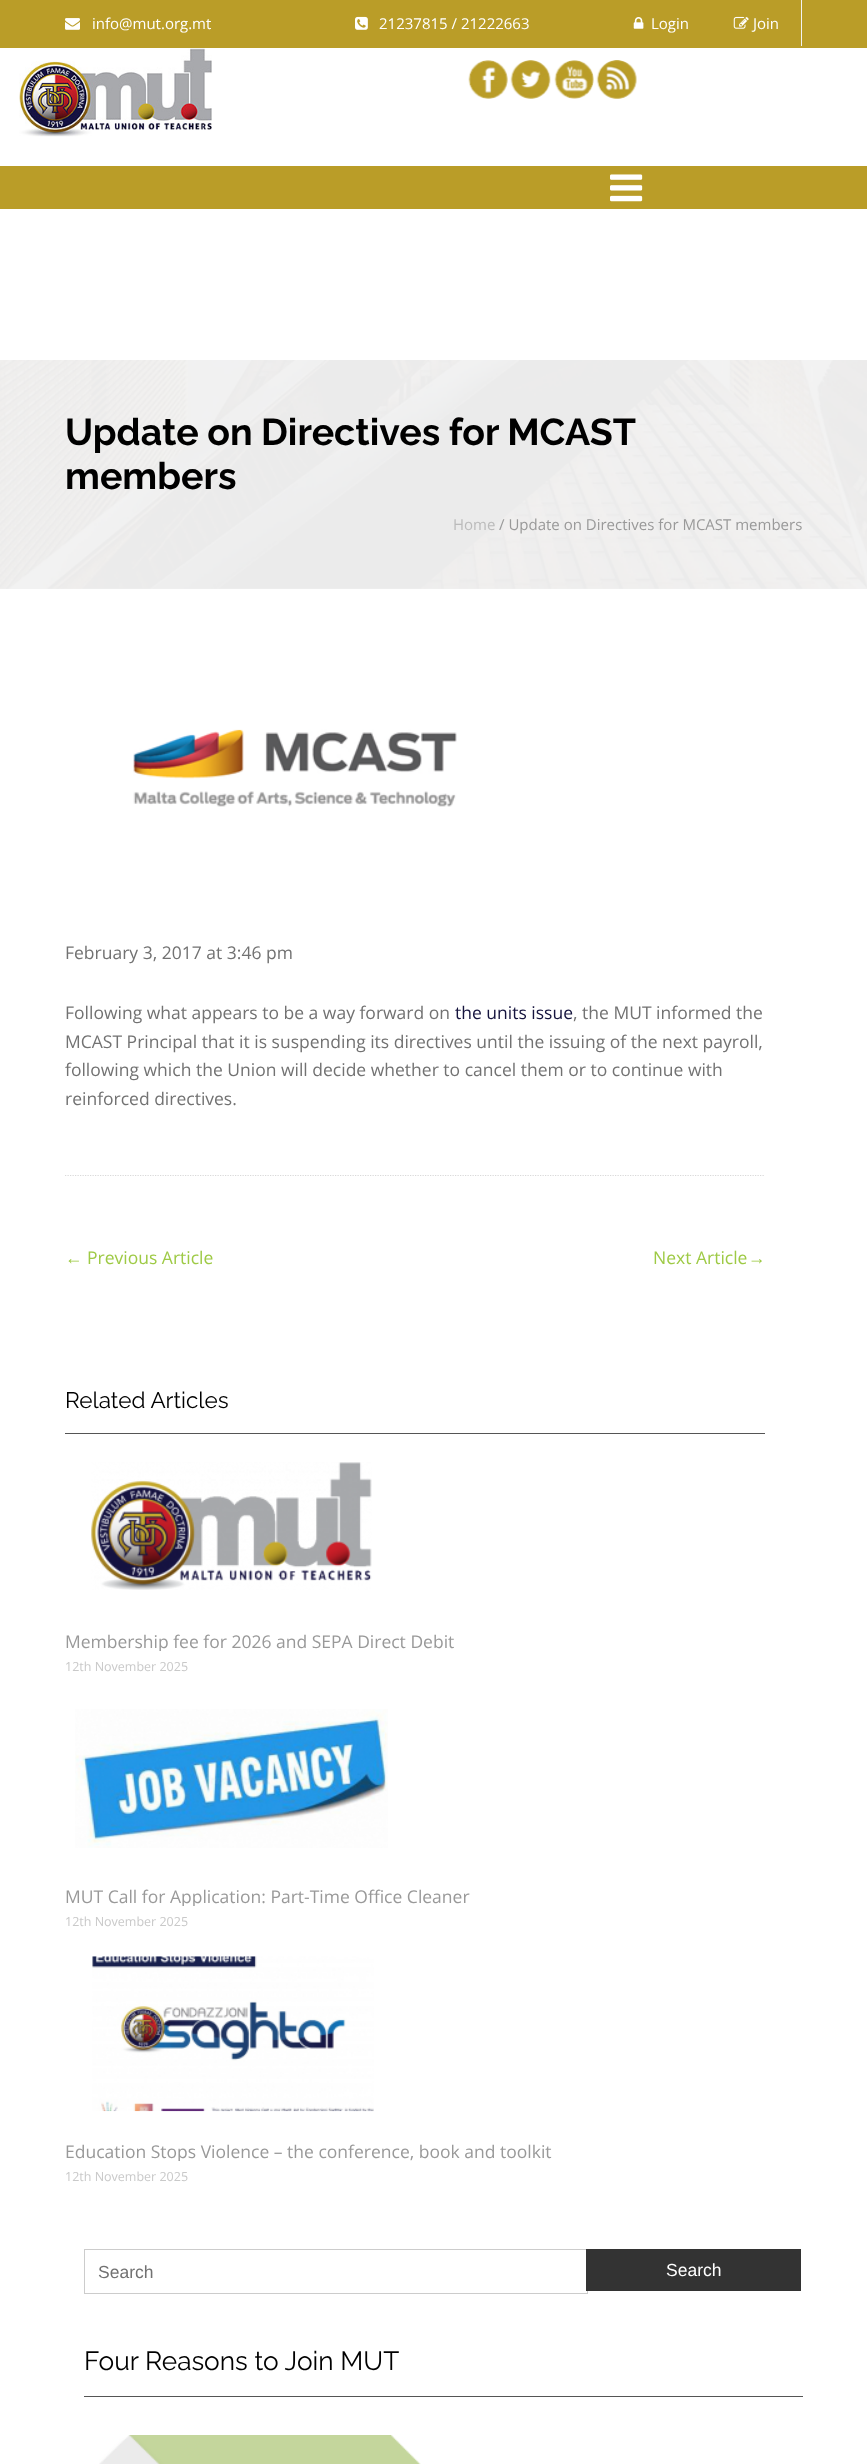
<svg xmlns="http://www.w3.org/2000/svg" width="867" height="2464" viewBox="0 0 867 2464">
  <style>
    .t1 { font: 15px Open Sans; fill: #fff; }
    .t2 { font: bold 37.5px Raleway; fill: #000; }
    .t3 { font: 15px Open Sans; fill: #bbb; }
    .t4 { font: 15px Open Sans; fill: #999; }
    .t5 { font: 17.5px Open Sans; fill: #727272; }
    .t6 { font: 17.5px Open Sans; fill: #15143e; }
    .t7 { font: 17.5px Liberation Sans; fill: #9eca45; }
    .t8 { font: 17.5px Open Sans; fill: #9eca45; }
    .t9 { font: 22.5px Raleway; fill: #000; }
    .t10 { font: 17.5px Open Sans; fill: #999; }
    .t11 { font: 12.5px Open Sans; fill: #c9c9c9; }
    .t12 { font: 17.5px Liberation Sans; fill: #727272; }
    .t13 { font: 17.5px Liberation Sans; fill: #fff; }
    .t14 { font: 26.25px Raleway; fill: #000; }
  </style>
  <defs>
    <clipPath id="clip1"><rect x="65" y="1630" width="700" height="21"/></clipPath>
    <clipPath id="clip2"><rect x="65" y="1885" width="700" height="21"/></clipPath>
    <clipPath id="clip3"><rect x="65" y="2140" width="700" height="21"/></clipPath>
  </defs>
  <rect width="100%" height="100%" fill="#fff"/>
  <rect x="0" y="0" width="867" height="48" fill="#ba9d28"/>
  <image x="65" y="18" width="15" height="12" href="images/1.png"/>
  <text x="92" y="29" class="t1">info@mut.org.mt</text>
  <image x="355" y="16" width="13" height="14" href="images/2.png"/>
  <text x="379" y="29" class="t1">21237815 / 21222663</text>
  <image x="633" y="17" width="11" height="12" href="images/3.png"/>
  <text x="651" y="29" class="t1">Login</text>
  <rect x="801" y="0" width="1" height="46" fill="#f3f3f3"/>
  <image x="733" y="16" width="16" height="13" href="images/4.png"/>
  <text x="753" y="29" class="t1">Join</text>
  <image x="19" y="48" width="193" height="89" href="images/5.png"/>
  <image x="468" y="60" width="40" height="39" href="images/6.png"/>
  <image x="510" y="60" width="41" height="39" href="images/7.png"/>
  <image x="554" y="60" width="40" height="39" href="images/8.png"/>
  <image x="596" y="60" width="41" height="39" href="images/9.png"/>
  <rect x="0" y="166" width="867" height="43" fill="#ba9d28"/>
  <image x="610" y="174" width="33" height="28" href="images/10.png"/>
  <rect x="0" y="360" width="867" height="229" fill="#f3f3f3"/>
  <image x="0" y="360" width="867" height="229" href="images/11.png"/>
  <text x="65" y="445" word-spacing="-0.5" class="t2">Update on Directives for MCAST</text>
  <text x="65" y="489" class="t2">members</text>
  <text x="453" y="530" class="t3">Home</text>
  <text x="499" y="530" class="t4">/ Update on Directives for MCAST members</text>
  <image x="133" y="729" width="324" height="78" href="images/12.png"/>
  <text x="65" y="959" class="t5">February 3, 2017 at 3:46 pm</text>
  <text x="65" y="1019" class="t5">Following what appears to be a way forward on</text>
  <text x="455" y="1019" class="t6">the units issue</text>
  <text x="573" y="1019" class="t5">, the MUT informed the</text>
  <text x="65" y="1048" class="t5">MCAST Principal that it is suspending its directives until the issuing of the next payroll,</text>
  <text x="65" y="1076" class="t5">following which the Union will decide whether to cancel them or to continue with</text>
  <text x="65" y="1105" class="t5">reinforced directives.</text>
  <path d="M65 1175.5H765" fill="none" stroke="#d9d9d9" stroke-width="1.2" stroke-dasharray="1.25 1.25"/>
  <text x="65" y="1264" class="t7">←</text>
  <text x="87" y="1264" class="t8">Previous Article</text>
  <text x="653" y="1264" class="t8">Next Article</text>
  <text x="748" y="1264" class="t7">→</text>
  <rect x="65" y="1433" width="700" height="1" fill="#555"/>
  <text x="65" y="1408" class="t9">Related Articles</text>
  <image x="91" y="1462" width="281" height="128" href="images/13.png"/>
  <g clip-path="url(#clip1)">
    <text x="65" y="1648" class="t10">Membership fee for 2026 and SEPA Direct Debit</text>
  </g>
  <text x="65" y="1671" class="t11">12th November 2025</text>
  <image x="75" y="1709" width="313" height="139" href="images/14.png"/>
  <g clip-path="url(#clip2)">
    <text x="65" y="1903" class="t10">MUT Call for Application: Part-Time Office Cleaner</text>
  </g>
  <text x="65" y="1926" class="t11">12th November 2025</text>
  <image x="92" y="1956" width="282" height="156" href="images/15.png"/>
  <g clip-path="url(#clip3)">
    <text x="65" y="2158" class="t10">Education Stops Violence – the conference, book and toolkit</text>
  </g>
  <text x="65" y="2181" class="t11">12th November 2025</text>
  <rect x="84.5" y="2249.5" width="503" height="44" fill="none" stroke="#ccc"/>
  <text x="98" y="2278" class="t12">Search</text>
  <rect x="586" y="2249" width="215" height="42" fill="#333"/>
  <text x="666" y="2276" class="t13">Search</text>
  <rect x="84" y="2396" width="719" height="1" fill="#555"/>
  <text x="84" y="2370" class="t14">Four</text>
  <text x="145" y="2370" class="t14">Reasons to Join MUT</text>
  <image x="99" y="2435" width="322" height="29" href="images/16.png"/>
</svg>
